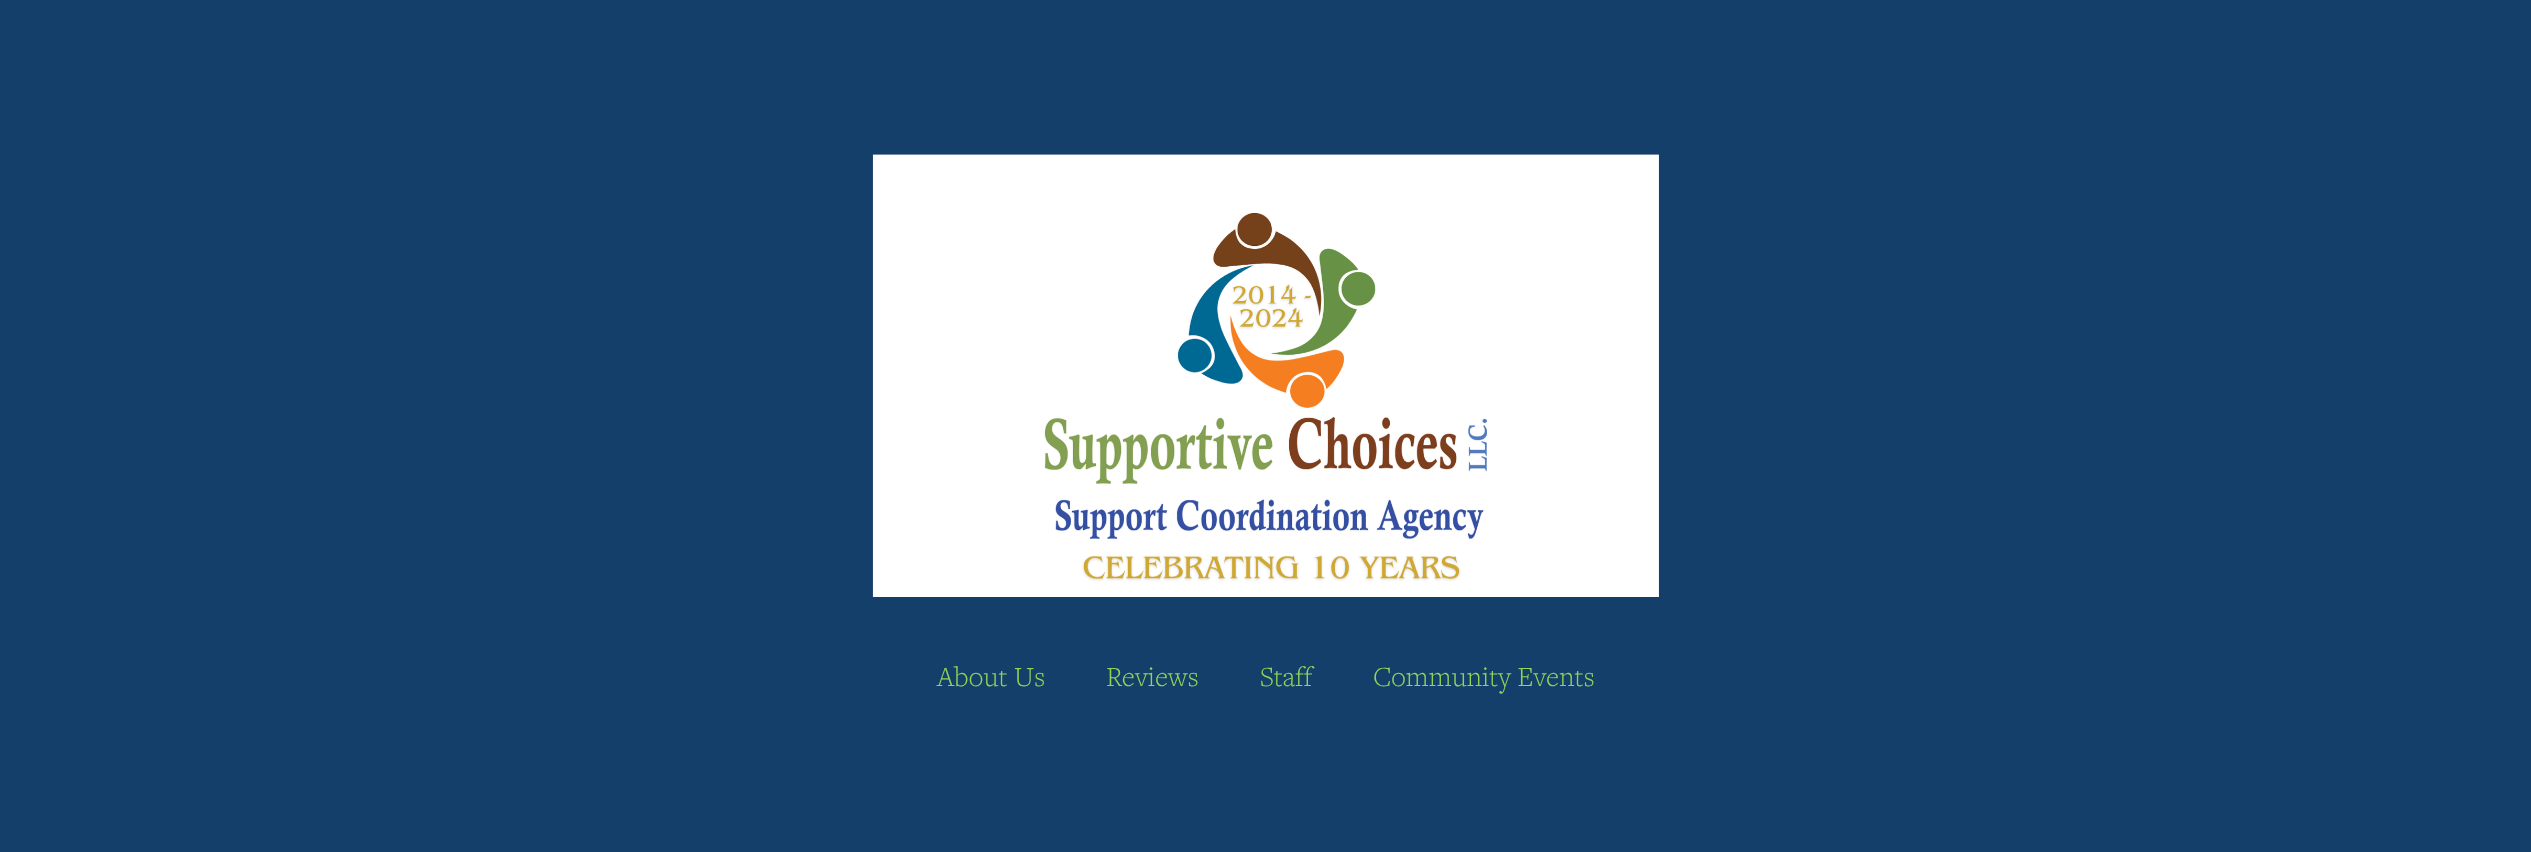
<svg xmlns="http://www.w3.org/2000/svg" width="2531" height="852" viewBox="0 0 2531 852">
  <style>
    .t1 { font: 300 28.75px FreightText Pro; fill: #90d45a; }
  </style>
  <rect width="100%" height="100%" fill="#143f6b"/>
  <image x="872" y="154" width="787" height="443" href="images/1.png"/>
  <text x="937" y="686" class="t1">About Us</text>
  <text x="1106" y="686" class="t1">Reviews</text>
  <text x="1260" y="686" class="t1">Staff</text>
  <text x="1373" y="686" class="t1">Community Events</text>
</svg>
